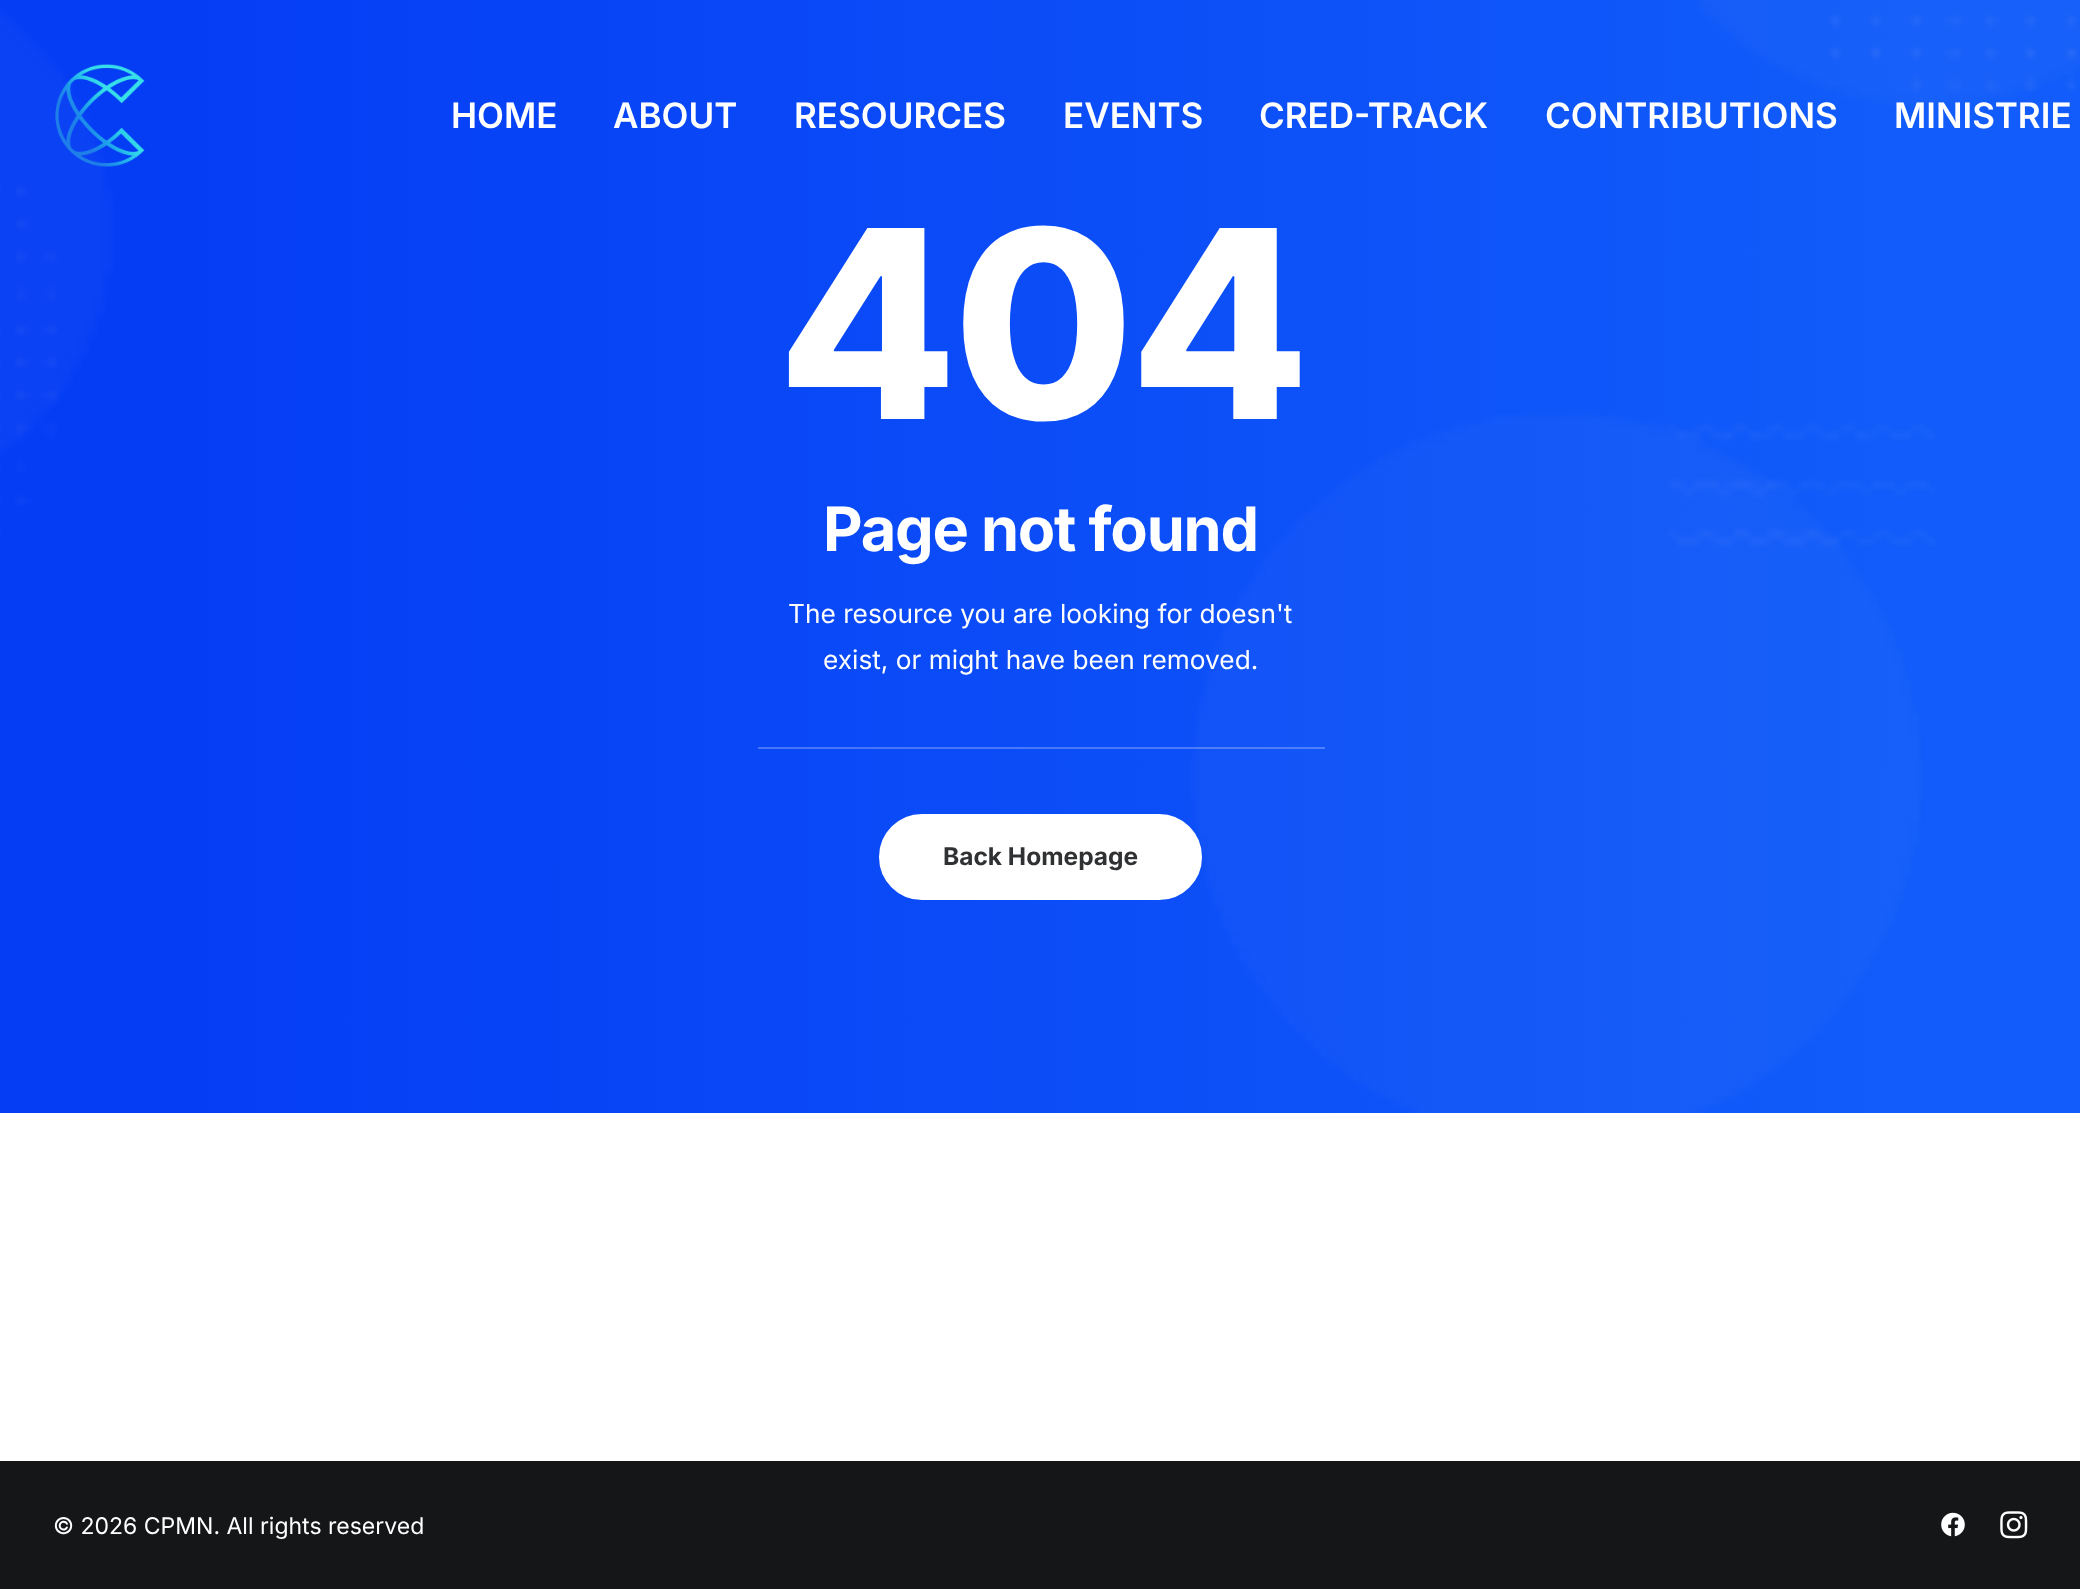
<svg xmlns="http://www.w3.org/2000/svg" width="2080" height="1589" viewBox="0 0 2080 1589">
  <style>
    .t1 { font: 600 35px Inter; fill: #fff; }
    .t2 { font: 800 262.5px Inter; letter-spacing: -5px; fill: #fff; }
    .t3 { font: bold 61.25px Inter; letter-spacing: -1.25px; fill: #fff; }
    .t4 { font: 26.25px Inter; fill: #fff; }
    .t5 { font: bold 24.5px Inter; fill: #303133; }
    .t6 { font: 23px Inter; fill: #fff; }
  </style>
  <defs>
    <linearGradient id="g1" gradientUnits="userSpaceOnUse" x1="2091" y1="557" x2="-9" y2="556"><stop offset="0.09" stop-color="#115cfa"/><stop offset="0.91" stop-color="#053df5"/></linearGradient>
  </defs>
  <rect width="100%" height="100%" fill="#141618"/>
  <rect x="0" y="0" width="2080" height="1113" fill="url(#g1)"/>
  <image x="0" y="0" width="2080" height="1113" href="images/2.png"/>
  <image x="55" y="64" width="90" height="103" href="images/1.png"/>
  <text x="451" y="128" class="t1">HOME</text>
  <text x="613" y="128" class="t1">ABOUT</text>
  <text x="794" y="128" class="t1">RESOURCES</text>
  <text x="1063" y="128" class="t1">EVENTS</text>
  <text x="1259" y="128" class="t1">CRED-TRACK</text>
  <text x="1545" y="128" class="t1">CONTRIBUTIONS</text>
  <text x="1894" y="128" class="t1">MINISTRIE</text>
  <text x="777" y="419" class="t2">404</text>
  <text x="823" y="551" class="t3">Page not found</text>
  <text x="788" y="623" class="t4">The resource you are looking for doesn't</text>
  <text x="823" y="669" class="t4">exist, or might have been removed.</text>
  <rect x="758" y="747" width="567" height="2" fill="#ffffff40"/>
  <rect x="880" y="815" width="321" height="84" rx="42" fill="#fff" stroke="#fff" stroke-width="2"/>
  <text x="943" y="865" class="t5">Back Homepage</text>
  <rect x="0" y="1113" width="2080" height="348" fill="#fff"/>
  <text x="53" y="1534" class="t6">© 2026 CPMN. All rights reserved</text>
  <image x="1941" y="1512" width="24" height="25" href="images/3.png"/>
  <image x="2000" y="1511" width="28" height="28" href="images/4.png"/>
</svg>
